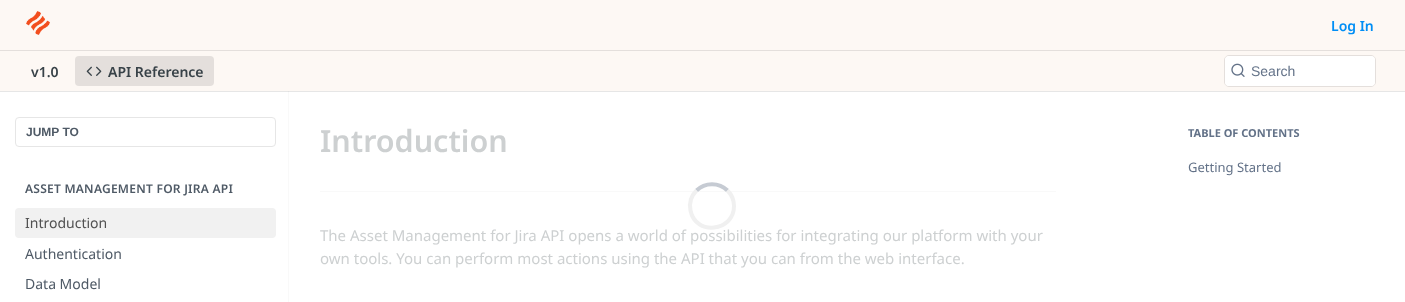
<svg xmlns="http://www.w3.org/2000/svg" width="1405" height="302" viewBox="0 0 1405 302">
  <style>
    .t1 { font: 600 14px Noto Sans; fill: #018ef5; }
    .t2 { font: 600 14px Noto Sans; fill: #384248; }
    .t3 { font: 14px Liberation Sans; fill: #637288; }
    .t4 { font: bold 12px Liberation Sans; fill: #4f5a66; }
    .t5 { font: 600 12px Noto Sans; letter-spacing: 0.25px; fill: #4f5a66; }
    .t6 { font: 14px Noto Sans; fill: #515151; }
    .t7 { font: 14px Noto Sans; fill: #4f5a66; }
    .t8 { font: 600 30.5px Noto Sans; fill: #cdd0d1; }
    .t9 { font: 15px Noto Sans; fill: #cdd0d1; }
    .t10 { font: bold 11px Noto Sans; fill: #637288; }
    .t11 { font: 13px Noto Sans; fill: #637288; }
  </style>
  <rect width="100%" height="100%" fill="#fff"/>
  <rect x="0" y="91" width="1405" height="1" fill="#e6e6e6"/>
  <rect x="0" y="0" width="1405" height="91" fill="#fdf8f4"/>
  <rect x="0" y="50" width="1405" height="1" fill="#e4dfdc"/>
  <image x="26" y="11" width="24" height="24" href="images/1.png"/>
  <text x="1331" y="31" class="t1">Log In</text>
  <text x="31" y="77" class="t2">v1.0</text>
  <rect x="75" y="56" width="139" height="30" rx="4" fill="#e4dfdc"/>
  <image x="86" y="66" width="16" height="10" href="images/2.png"/>
  <text x="108" y="77" class="t2">API Reference</text>
  <rect x="1224.5" y="55.5" width="151" height="31" rx="4.5" fill="none" stroke="#e4dfdc"/>
  <rect x="1225" y="56" width="150" height="30" rx="4" fill="#fff"/>
  <image x="1231" y="63" width="14" height="14" href="images/3.png"/>
  <text x="1251" y="76" class="t3">Search</text>
  <rect x="288" y="91" width="1" height="211" fill="#f9f9f9"/>
  <rect x="288" y="91" width="1" height="1" fill="#e0e0e0"/>
  <rect x="15.5" y="117.5" width="260" height="29" rx="3.5" fill="none" stroke="#e6e6e6"/>
  <text x="26" y="136" class="t4">JUMP TO</text>
  <text x="25" y="193" class="t5">ASSET MANAGEMENT FOR JIRA API</text>
  <rect x="15" y="208" width="261" height="30" rx="4" fill="#f1f1f1"/>
  <text x="25" y="228" class="t6">Introduction</text>
  <text x="25" y="259" class="t7">Authentication</text>
  <text x="25" y="289" class="t7">Data Model</text>
  <rect x="320" y="191" width="736" height="1" fill="#f9f9f9"/>
  <text x="320" y="152" class="t8">Introduction</text>
  <path d="M696.5 190.5C705 182 719 182 727.5 190.5" fill="none" stroke="#c6cbd3" stroke-width="4"/>
  <text x="320" y="241" class="t9">The Asset Management for Jira API opens a world of possibilities for integrating our platform with your</text>
  <path d="M727.5 190.5C731.5 194.5 734 200 734 206C734 232 695.5 236 690.5 210.5C689 203 691.5 195.5 696.5 190.5" fill="none" stroke="#f0f0f0" stroke-width="4"/>
  <text x="320" y="264" class="t9">own tools. You can perform most actions using the API that you can from the web interface.</text>
  <text x="1188" y="137" class="t10">TABLE OF CONTENTS</text>
  <text x="1188" y="172" class="t11">Getting Started</text>
</svg>
